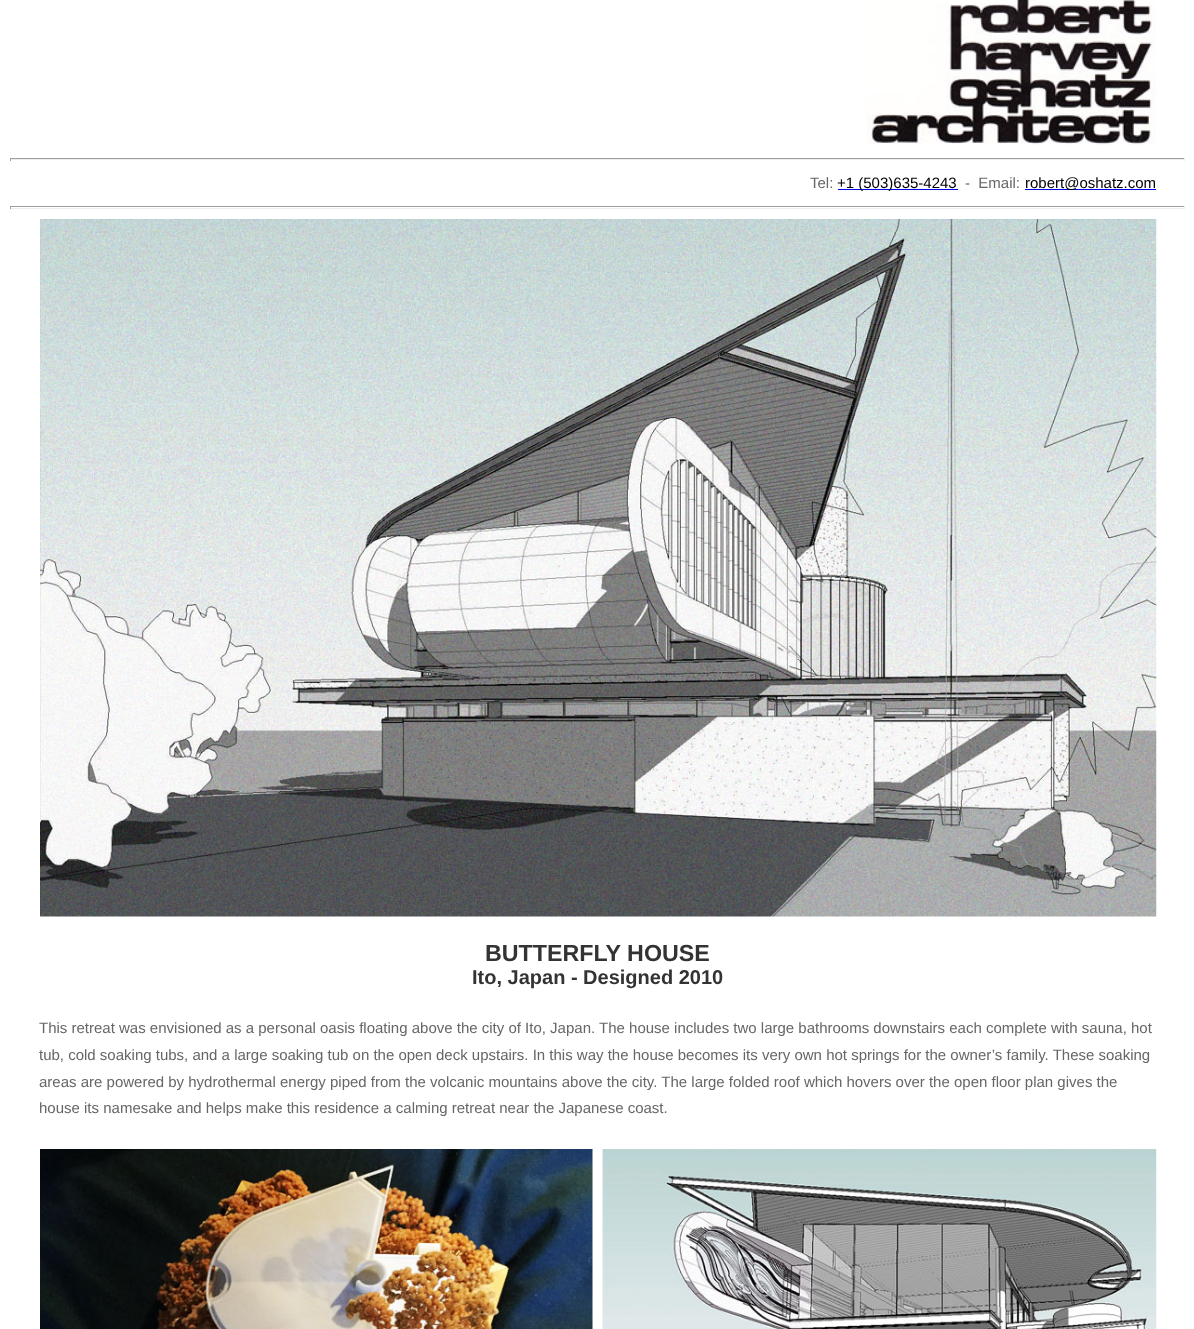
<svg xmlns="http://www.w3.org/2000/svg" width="1194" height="1329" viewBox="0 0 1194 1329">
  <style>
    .t1 { font: 15px Liberation Sans; fill: #666; }
    .t2 { font: 15px Liberation Sans; fill: #000; }
    .t3 { font: bold 23.25px Liberation Sans; fill: #333; }
    .t4 { font: bold 20px Liberation Sans; fill: #333; }
  </style>
  <rect width="100%" height="100%" fill="#fff"/>
  <image x="866" y="0" width="290" height="145" href="images/1.png"/>
  <rect x="10" y="158" width="1175" height="1" fill="#9f9f9f"/>
  <rect x="1184" y="158" width="1" height="3" fill="#eee"/>
  <rect x="10" y="159" width="1175" height="1" fill="#eee"/>
  <rect x="10" y="158" width="1" height="3" fill="#9f9f9f"/>
  <text x="810" y="188" class="t1">Tel:</text>
  <rect x="838" y="189" width="120" height="1" fill="#00e"/>
  <text x="837" y="188" class="t2">+1 (503)635-4243</text>
  <text x="965" y="188" class="t1" xml:space="preserve">-  Email:</text>
  <rect x="1025" y="189" width="131" height="1" fill="#00e"/>
  <text x="1025" y="188" class="t2">robert@oshatz.com</text>
  <rect x="10" y="206" width="1175" height="1" fill="#9f9f9f"/>
  <rect x="1184" y="206" width="1" height="3" fill="#eee"/>
  <rect x="10" y="208" width="1175" height="1" fill="#eee"/>
  <rect x="10" y="206" width="1" height="3" fill="#9f9f9f"/>
  <image x="40" y="219" width="1117" height="698" href="images/2.png"/>
  <text x="485" y="961" class="t3">BUTTERFLY HOUSE</text>
  <text x="472" y="984" class="t4">Ito, Japan - Designed 2010</text>
  <text x="39" y="1033" class="t1">This retreat was envisioned as a personal oasis floating above the city of Ito, Japan. The house includes two large bathrooms downstairs each complete with sauna, hot</text>
  <text x="39" y="1060" class="t1">tub, cold soaking tubs, and a large soaking tub on the open deck upstairs. In this way the house becomes its very own hot springs for the owner’s family. These soaking</text>
  <text x="39" y="1087" class="t1">areas are powered by hydrothermal energy piped from the volcanic mountains above the city. The large folded roof which hovers over the open floor plan gives the</text>
  <text x="39" y="1113" class="t1">house its namesake and helps make this residence a calming retreat near the Japanese coast.</text>
  <image x="40" y="1149" width="553" height="180" href="images/3.png"/>
  <image x="602" y="1149" width="555" height="180" href="images/4.png"/>
</svg>
